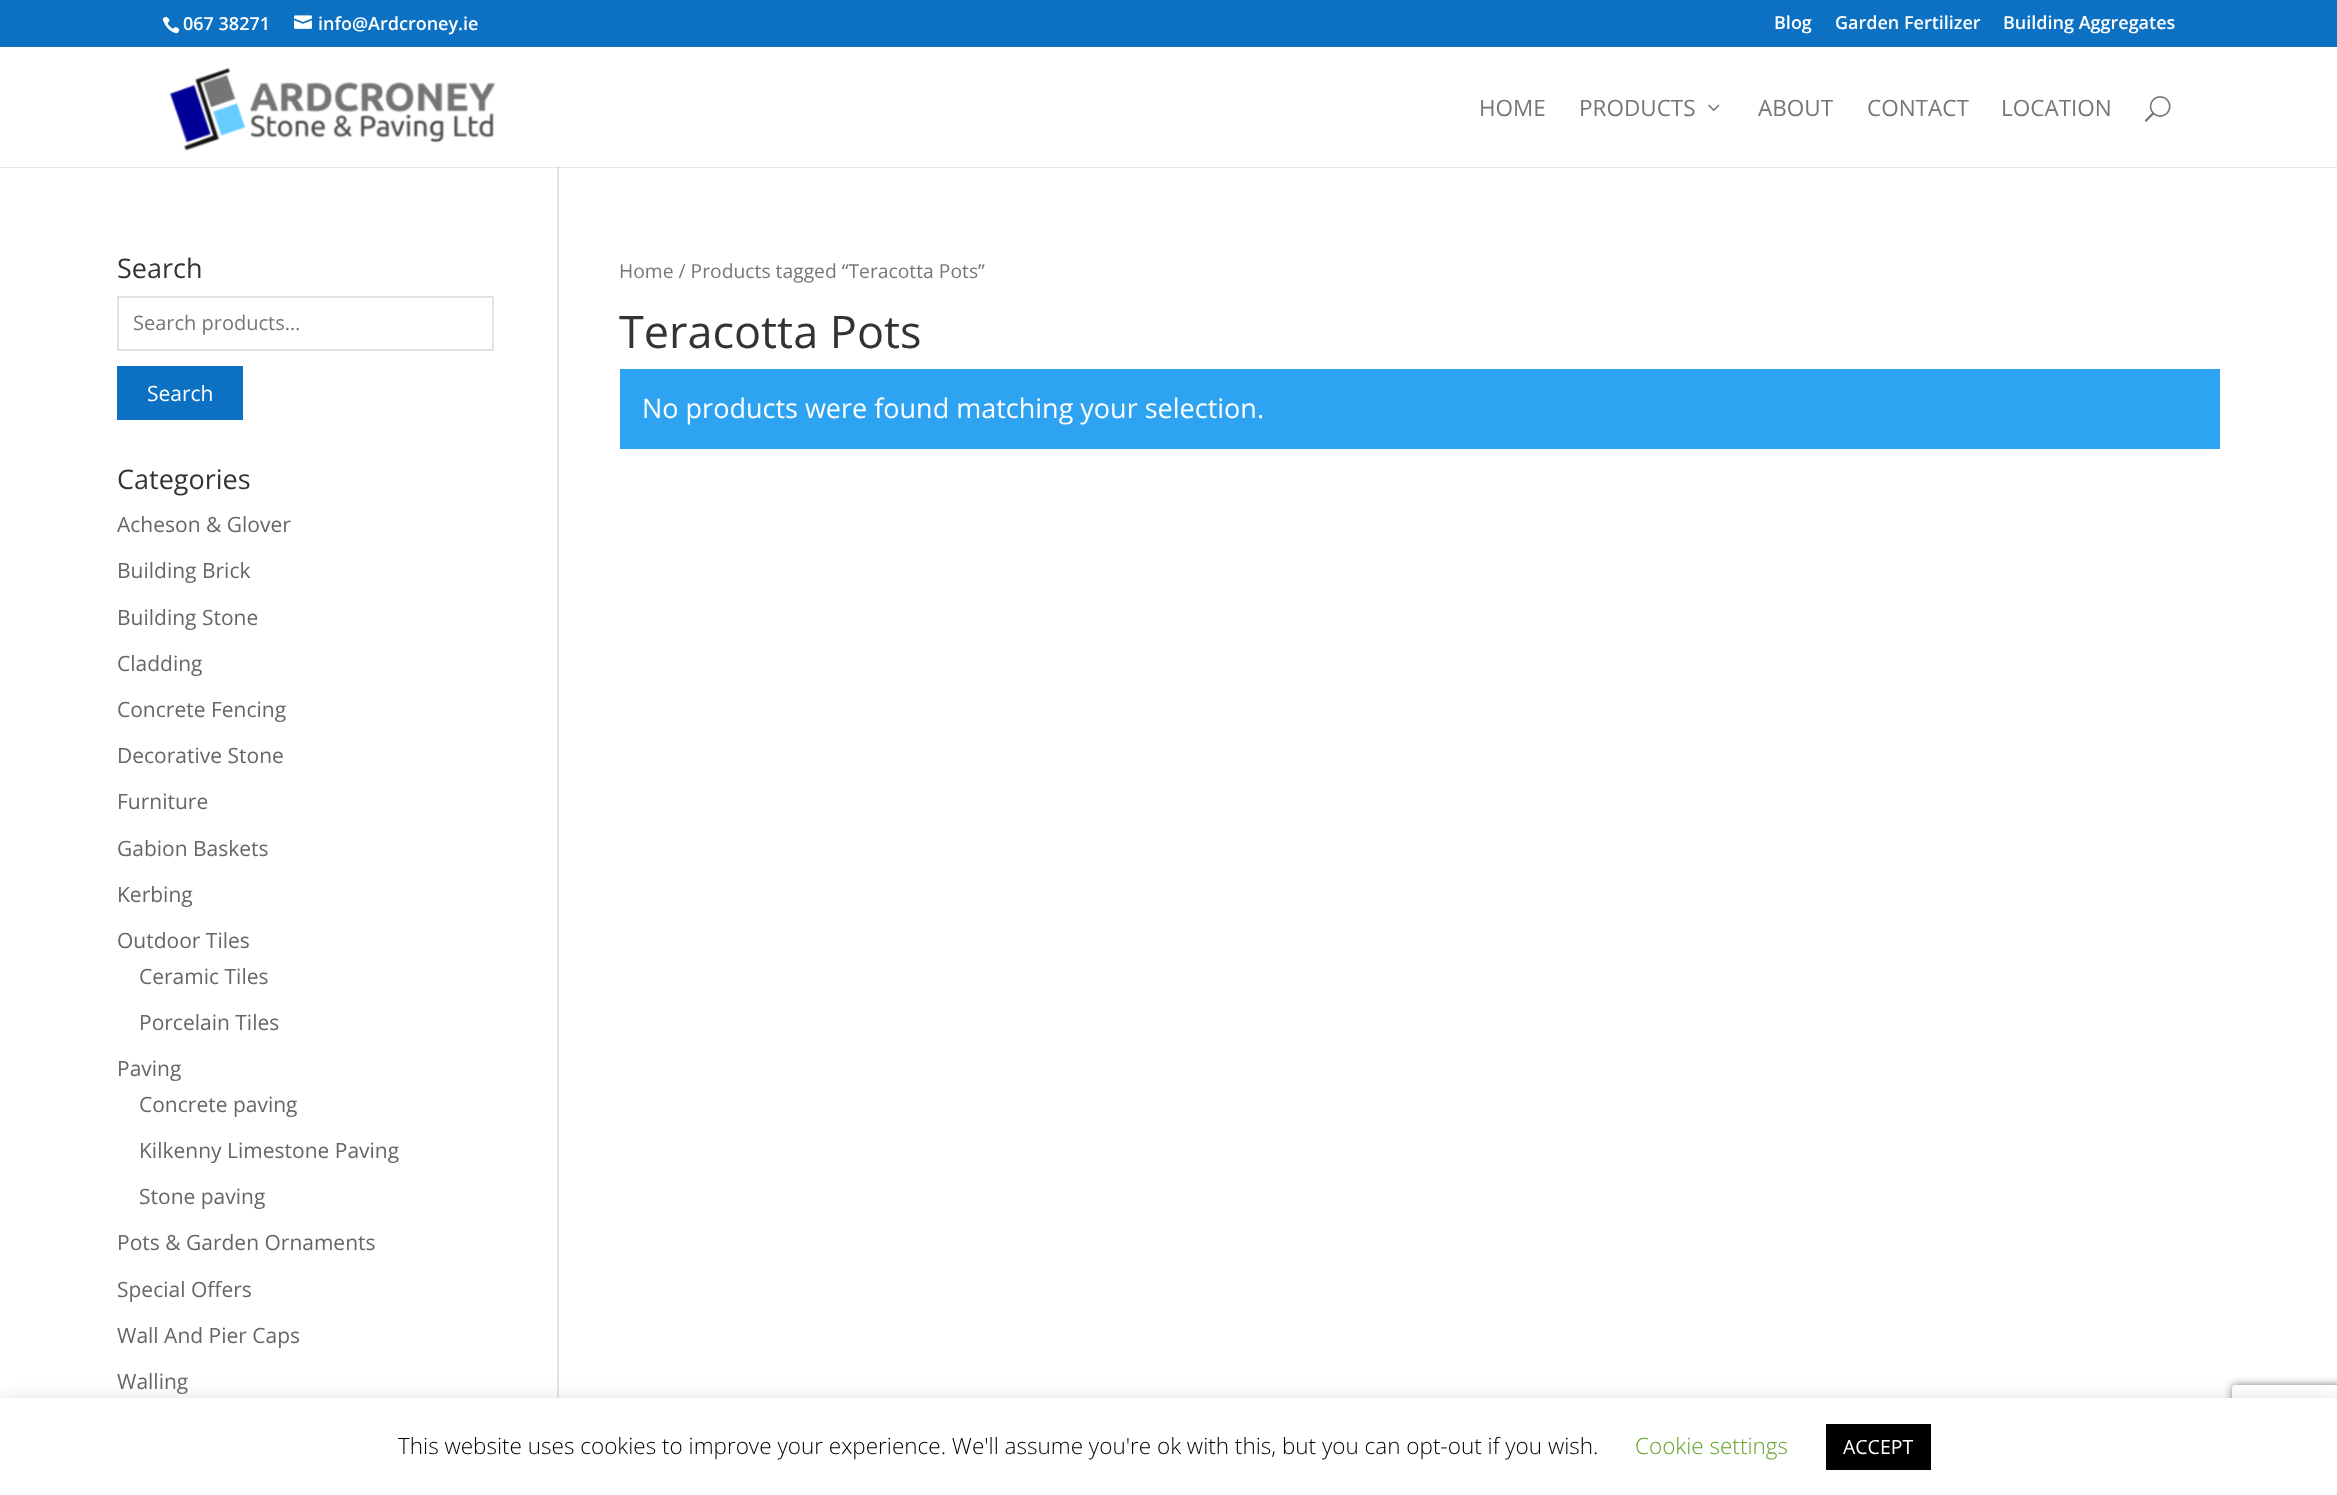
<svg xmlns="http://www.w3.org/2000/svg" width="2337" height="1495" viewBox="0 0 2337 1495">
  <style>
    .t1 { font: 600 18px Open Sans; fill: #fff; }
    .t2 { font: 22.5px Open Sans; fill: #767676; }
    .t3 { font: 27px Open Sans; fill: #333; }
    .t4 { font: 20px Open Sans; fill: #767676; }
    .t5 { font: 21px Open Sans; fill: #fff; }
    .t6 { font: 21px Open Sans; fill: #666; }
    .t7 { font: 19.3px Open Sans; fill: #767676; }
    .t8 { font: 45px Open Sans; fill: #333; }
    .t9 { font: 27px Open Sans; fill: #fff; }
    .t10 { font: 300 22.5px Open Sans; fill: #000; }
    .t11 { font: 300 22.5px Open Sans; fill: #62a329; }
    .t12 { font: 19.5px Open Sans; fill: #fff; }
  </style>
  <defs>
    <clipPath id="clip1"><path d="M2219 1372H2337V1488H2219ZM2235 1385H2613C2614.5 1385 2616 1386.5 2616 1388V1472C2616 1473.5 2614.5 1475 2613 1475H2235C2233.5 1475 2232 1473.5 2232 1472V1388C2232 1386.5 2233.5 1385 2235 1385Z" clip-rule="evenodd"/></clipPath>
  </defs>
  <rect width="100%" height="100%" fill="#fff"/>
  <rect x="0" y="167" width="2337" height="1" fill="#e6e6e6"/>
  <rect x="0" y="0" width="2337" height="47" fill="#0c71c3"/>
  <image x="162" y="16" width="18" height="18" href="images/1.png"/>
  <text x="183" y="30" class="t1">067 38271</text>
  <image x="294" y="15" width="18" height="14" href="images/2.png"/>
  <text x="318" y="30" class="t1">info@Ardcroney.ie</text>
  <text x="1774" y="29" class="t1">Blog</text>
  <text x="1835" y="29" class="t1">Garden Fertilizer</text>
  <text x="2003" y="29" class="t1">Building Aggregates</text>
  <image x="169" y="67" width="327" height="84" href="images/3.png"/>
  <text x="1479" y="116" class="t2">HOME</text>
  <text x="1579" y="116" class="t2">PRODUCTS</text>
  <image x="1708" y="104" width="12" height="7" href="images/4.png"/>
  <text x="1758" y="116" class="t2">ABOUT</text>
  <text x="1867" y="116" class="t2">CONTACT</text>
  <text x="2001" y="116" class="t2">LOCATION</text>
  <image x="2144" y="96" width="27" height="26" href="images/5.png"/>
  <rect x="557" y="167" width="2" height="1231" fill="#e2e2e2"/>
  <rect x="557" y="167" width="2" height="1" fill="#cbcbcb"/>
  <text x="117" y="278" class="t3">Search</text>
  <rect x="118" y="297" width="375" height="53" fill="none" stroke="#e2e2e2" stroke-width="2"/>
  <text x="133" y="330" class="t4">Search products…</text>
  <rect x="117" y="366" width="126" height="54" fill="#0c71c3"/>
  <text x="147" y="401" class="t5">Search</text>
  <text x="117" y="489" class="t3">Categories</text>
  <text x="117" y="532" class="t6">Acheson &amp; Glover</text>
  <text x="117" y="578" class="t6">Building Brick</text>
  <text x="117" y="625" class="t6">Building Stone</text>
  <text x="117" y="671" class="t6">Cladding</text>
  <text x="117" y="717" class="t6">Concrete Fencing</text>
  <text x="117" y="763" class="t6">Decorative Stone</text>
  <text x="117" y="809" class="t6">Furniture</text>
  <text x="117" y="856" class="t6">Gabion Baskets</text>
  <text x="117" y="902" class="t6">Kerbing</text>
  <text x="117" y="948" class="t6">Outdoor Tiles</text>
  <text x="139" y="984" class="t6">Ceramic Tiles</text>
  <text x="139" y="1030" class="t6">Porcelain Tiles</text>
  <text x="117" y="1076" class="t6">Paving</text>
  <text x="139" y="1112" class="t6">Concrete paving</text>
  <text x="139" y="1158" class="t6">Kilkenny Limestone Paving</text>
  <text x="139" y="1204" class="t6">Stone paving</text>
  <text x="117" y="1250" class="t6">Pots &amp; Garden Ornaments</text>
  <text x="117" y="1297" class="t6">Special Offers</text>
  <text x="117" y="1343" class="t6">Wall And Pier Caps</text>
  <text x="117" y="1389" class="t6">Walling</text>
  <text x="619" y="278" class="t7">Home / Products tagged “Teracotta Pots”</text>
  <text x="619" y="348" class="t8">Teracotta Pots</text>
  <rect x="620" y="369" width="1600" height="80" fill="#2ea3f2"/>
  <text x="642" y="418" class="t9">No products were found matching your selection.</text>
  <rect x="0" y="1397" width="2337" height="97" fill="#acabab4d" filter="blur(7.5px)"/>
  <g clip-path="url(#clip1)">
    <rect x="2232" y="1385" width="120" height="90" rx="3" fill="#808080" filter="blur(4px)"/>
  </g>
  <rect x="0" y="1398" width="2337" height="97" fill="#fff"/>
  <text x="398" y="1454" class="t10">This website uses cookies to improve your experience. We'll assume you're ok with this, but you can opt-out if you wish.</text>
  <text x="1635" y="1454" class="t11">Cookie settings</text>
  <rect x="1826" y="1424" width="105" height="46" fill="#000"/>
  <text x="1843" y="1454" class="t12">ACCEPT</text>
</svg>
